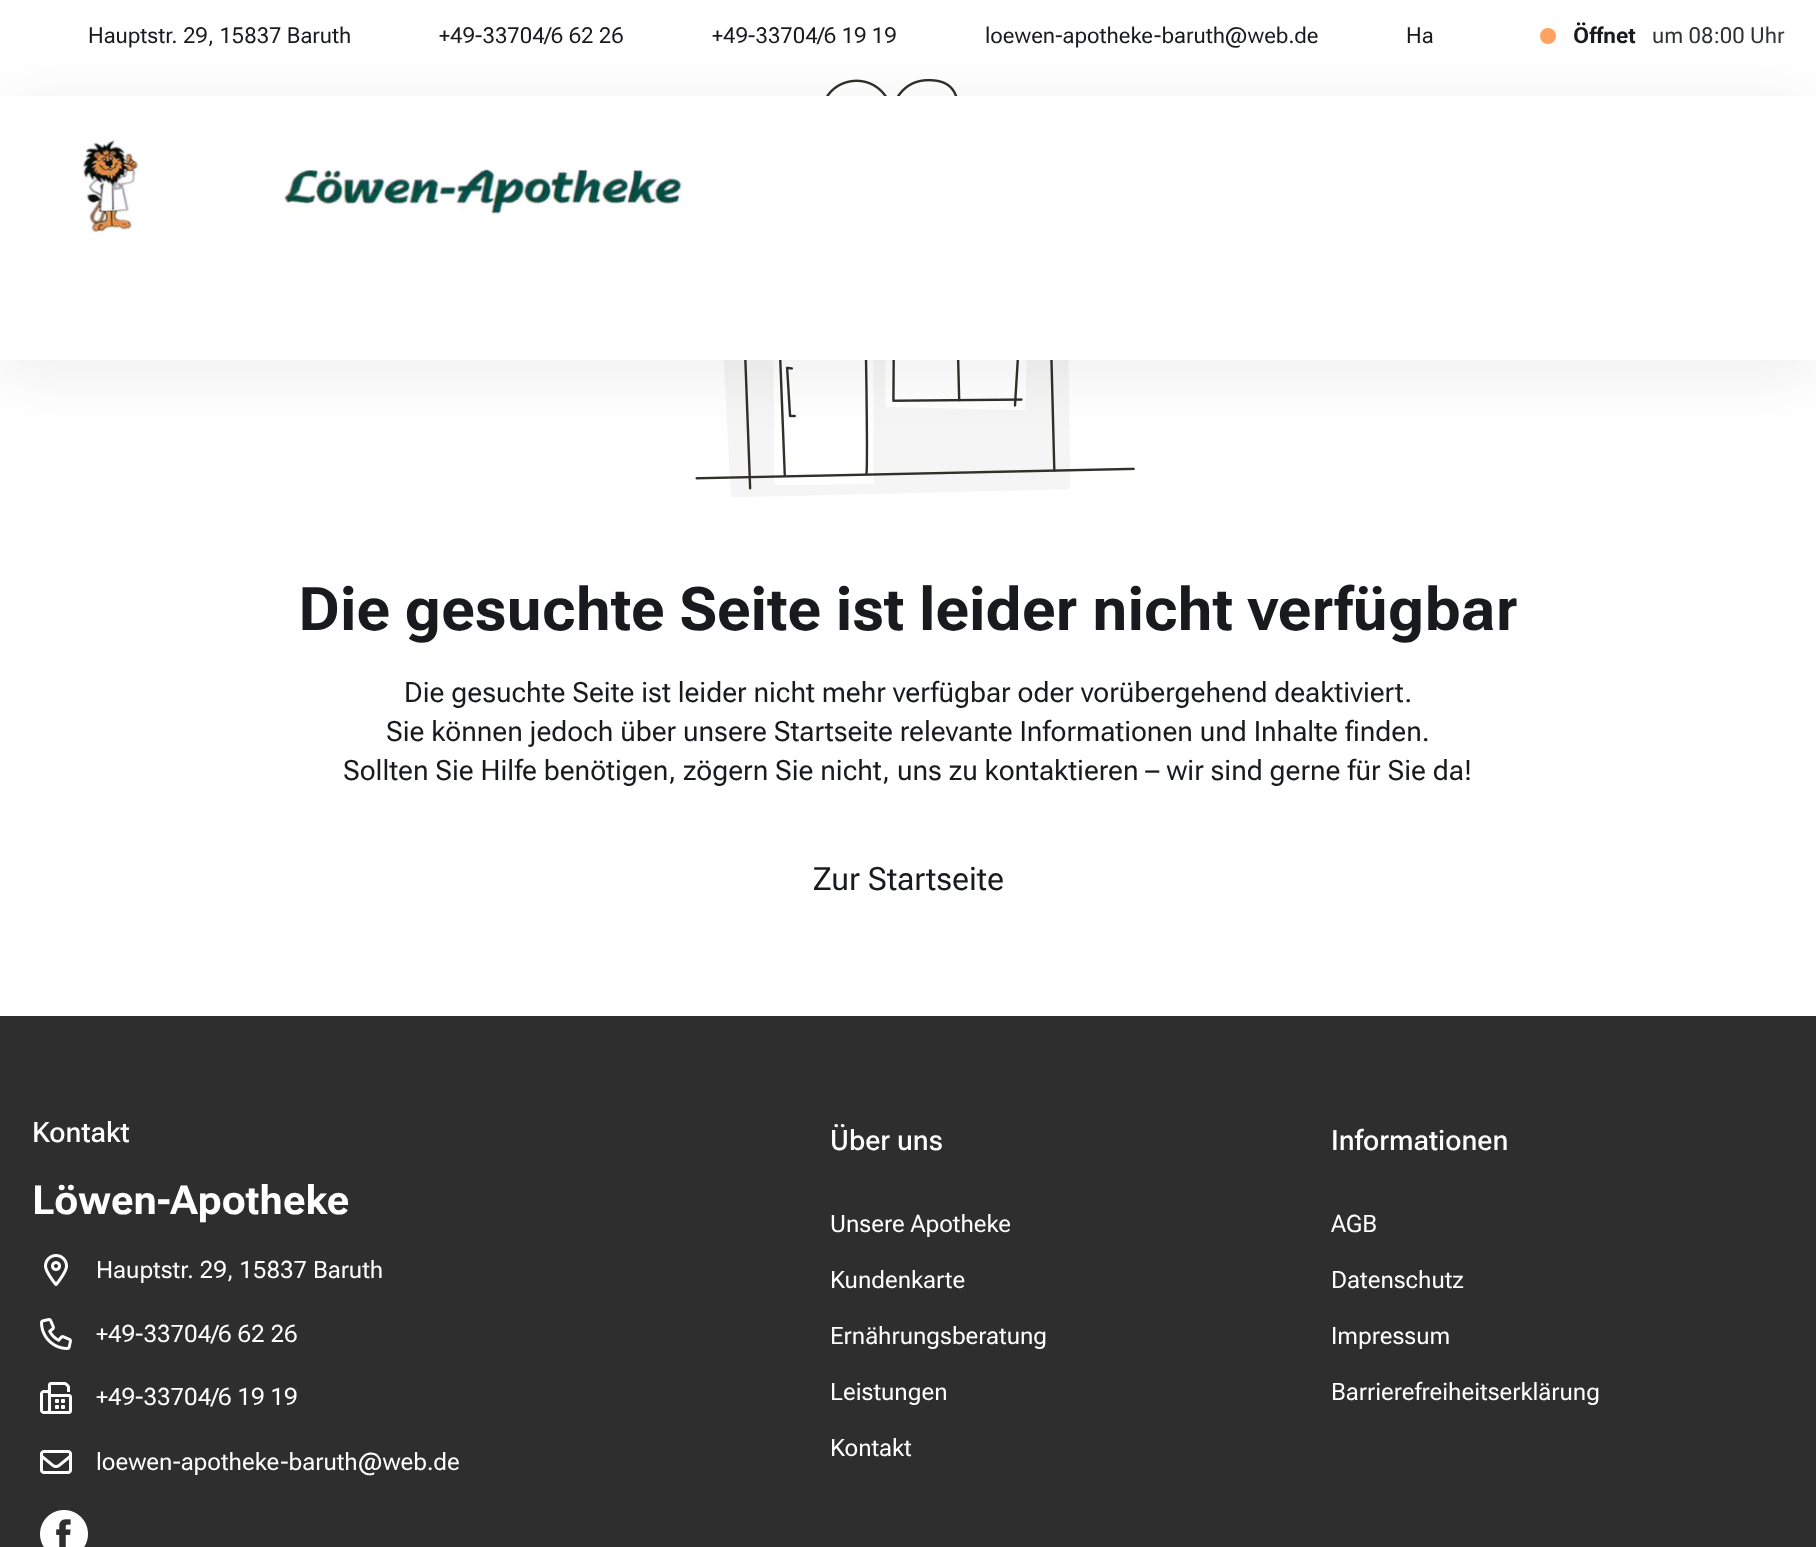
<svg xmlns="http://www.w3.org/2000/svg" width="1816" height="1547" viewBox="0 0 1816 1547">
  <style>
    .t1 { font: 22px Roboto Flex; fill: #191a1d; }
    .t2 { font: bold 22px Roboto Flex; fill: #191a1d; }
    .t3 { font: 22px Roboto Flex; fill: #303134; }
    .t4 { font: bold 60px Roboto Flex; fill: #191a1d; }
    .t5 { font: 28px Roboto Flex; fill: #191a1d; }
    .t6 { font: 32px Roboto Flex; fill: #191a1d; }
    .t7 { font: 500 28px Roboto Flex; fill: #fff; }
    .t8 { font: bold 40px Roboto Flex; fill: #fff; }
    .t9 { font: 24px Roboto Flex; fill: #fff; }
  </style>
  <rect width="100%" height="100%" fill="#fff"/>
  <image x="695" y="78" width="440" height="419" href="images/2.png"/>
  <rect x="0" y="108" width="1816" height="264" fill="#00000012" filter="blur(32px)"/>
  <rect x="0" y="96" width="1816" height="264" fill="#fff"/>
  <image x="81" y="140" width="603" height="95" href="images/1.png"/>
  <text x="88" y="43" class="t1">Hauptstr. 29, 15837 Baruth</text>
  <text x="439" y="43" class="t1">+49-33704/6 62 26</text>
  <text x="712" y="43" class="t1">+49-33704/6 19 19</text>
  <text x="985" y="43" class="t1">loewen-apotheke-baruth@web.de</text>
  <text x="1406" y="43" class="t1">Ha</text>
  <circle cx="1548" cy="36" r="8" fill="#fea362"/>
  <text x="1573" y="43" class="t2">Öffnet</text>
  <text x="1652" y="43" class="t3">um 08:00 Uhr</text>
  <text x="298" y="630" class="t4">Die gesuchte Seite ist leider nicht verfügbar</text>
  <text x="404" y="702" class="t5">Die gesuchte Seite ist leider nicht mehr verfügbar oder vorübergehend deaktiviert.</text>
  <text x="386" y="741" class="t5">Sie können jedoch über unsere Startseite relevante Informationen und Inhalte finden.</text>
  <text x="343" y="780" class="t5">Sollten Sie Hilfe benötigen, zögern Sie nicht, uns zu kontaktieren – wir sind gerne für Sie da!</text>
  <text x="813" y="890" class="t6">Zur Startseite</text>
  <rect x="0" y="1016" width="1816" height="531" fill="#2e2e2e"/>
  <text x="32" y="1142" class="t7">Kontakt</text>
  <text x="32" y="1214" class="t8">Löwen-Apotheke</text>
  <image x="44" y="1254" width="24" height="32" href="images/3.png"/>
  <text x="96" y="1278" class="t9">Hauptstr. 29, 15837 Baruth</text>
  <image x="40" y="1318" width="32" height="32" href="images/4.png"/>
  <text x="96" y="1342" class="t9">+49-33704/6 62 26</text>
  <image x="40" y="1382" width="32" height="32" href="images/5.png"/>
  <text x="96" y="1405" class="t9">+49-33704/6 19 19</text>
  <image x="40" y="1450" width="32" height="24" href="images/6.png"/>
  <text x="96" y="1470" class="t9">loewen-apotheke-baruth@web.de</text>
  <image x="40" y="1510" width="48" height="37" href="images/7.png"/>
  <text x="830" y="1150" class="t7">Über uns</text>
  <text x="830" y="1232" class="t9">Unsere Apotheke</text>
  <text x="830" y="1288" class="t9">Kundenkarte</text>
  <text x="830" y="1344" class="t9">Ernährungsberatung</text>
  <text x="830" y="1400" class="t9">Leistungen</text>
  <text x="830" y="1456" class="t9">Kontakt</text>
  <text x="1331" y="1150" class="t7">Informationen</text>
  <text x="1331" y="1232" class="t9">AGB</text>
  <text x="1331" y="1288" class="t9">Datenschutz</text>
  <text x="1331" y="1344" class="t9">Impressum</text>
  <text x="1331" y="1400" class="t9">Barrierefreiheitserklärung</text>
</svg>
